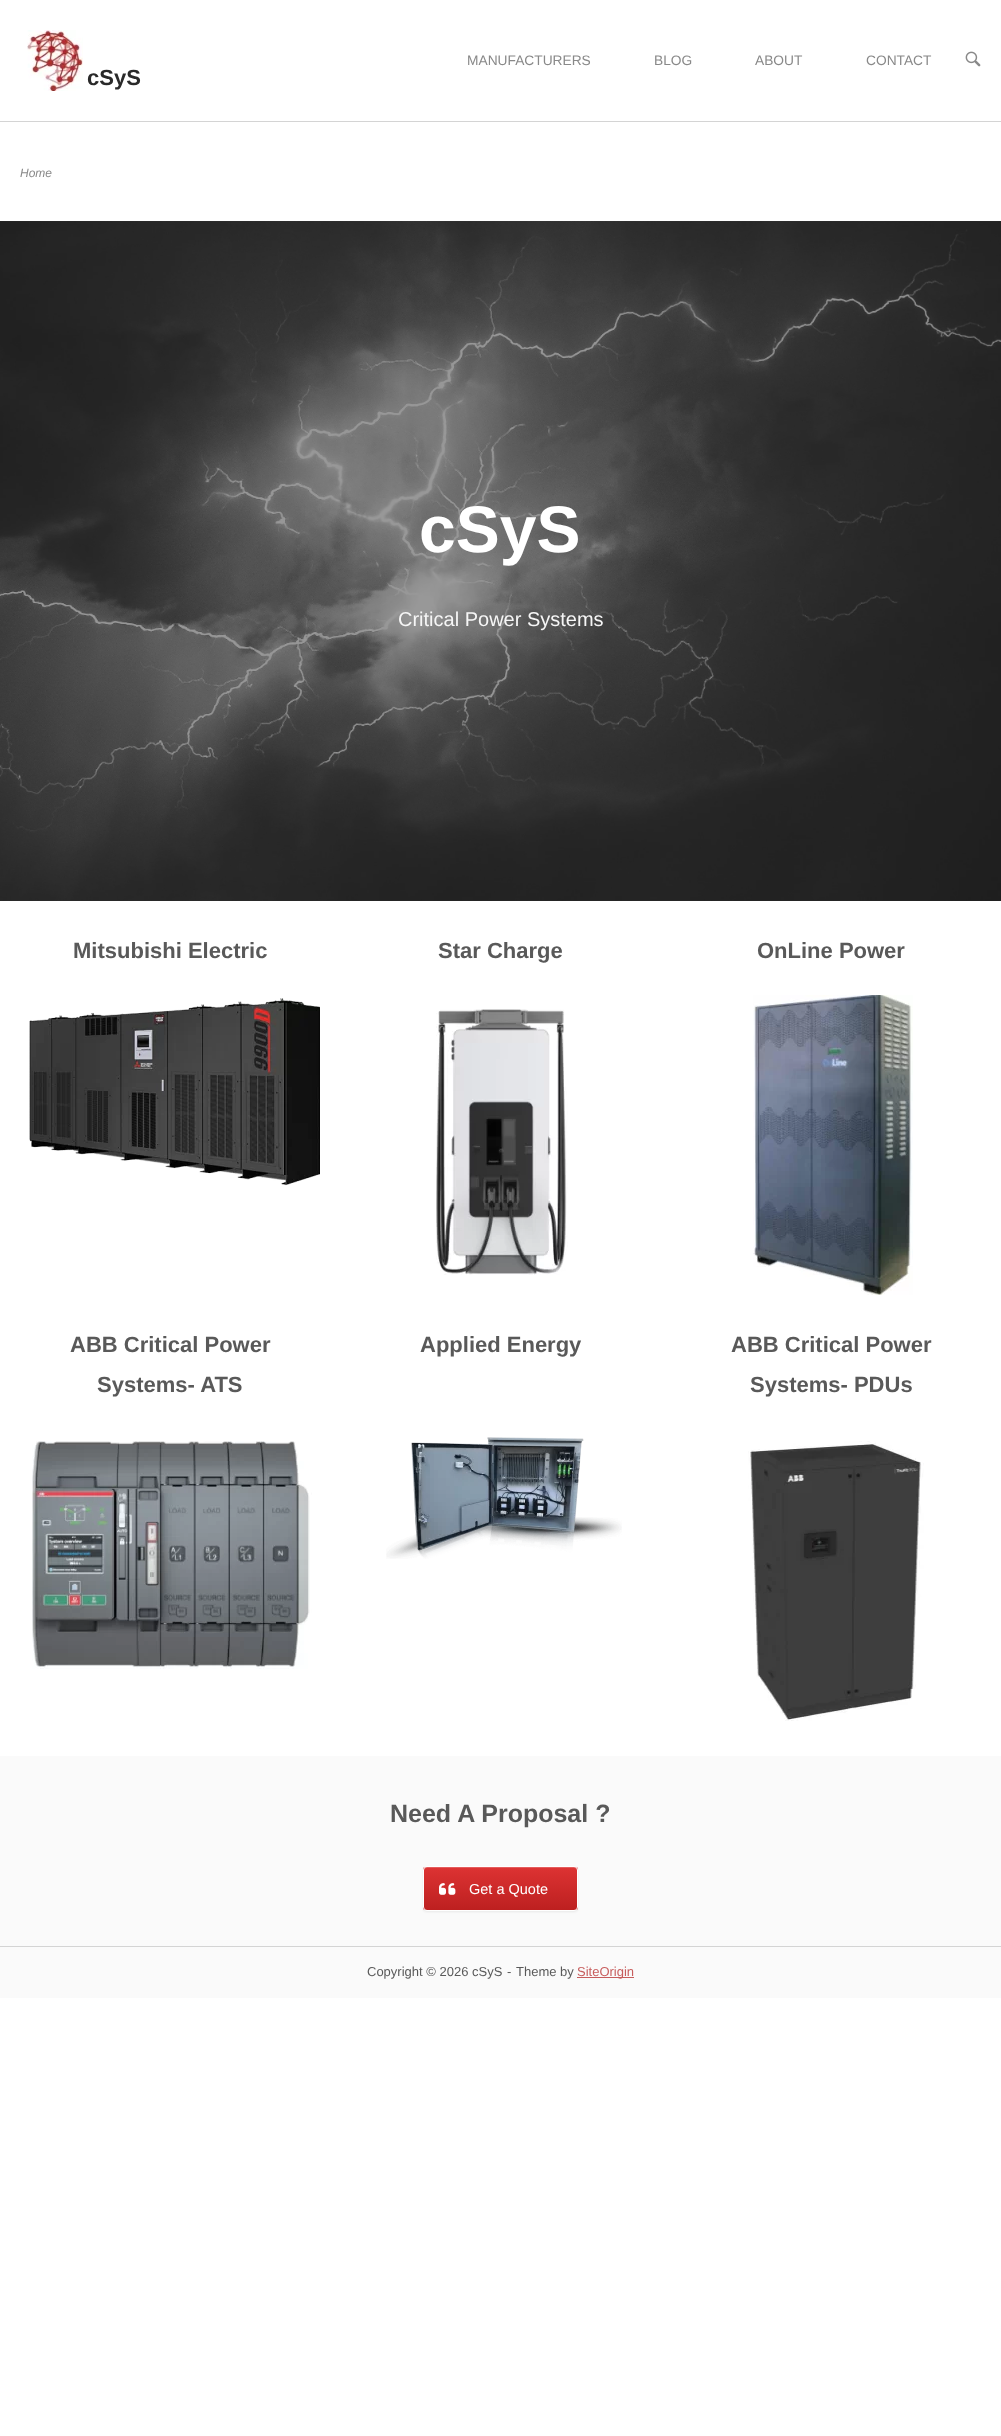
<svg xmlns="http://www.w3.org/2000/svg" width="1001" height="2436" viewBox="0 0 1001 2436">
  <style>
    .t1 { font: 13.75px Liberation Sans; fill: #898989; }
    .t2 { font: bold 22px Liberation Sans; fill: #292929; }
    .t3 { font: italic 12px Liberation Sans; fill: #898989; }
    .t4 { font: bold 66px Liberation Sans; fill: #fff; }
    .t5 { font: 20px Liberation Sans; fill: #f6f6f6; }
    .t6 { font: bold 22px Liberation Sans; fill: #595959; }
    .t7 { font: bold 25px Liberation Sans; fill: #595959; }
    .t8 { font: 14.5px Liberation Sans; fill: #fff; }
    .t9 { font: 13px Liberation Sans; fill: #595959; }
    .t10 { font: 13px Liberation Sans; fill: #c75d5d; }
  </style>
  <defs>
    <clipPath id="clip1"><rect x="423" y="1866" width="155" height="45" rx="4"/></clipPath>
    <linearGradient id="g1" gradientUnits="userSpaceOnUse" x1="424" y1="1910" x2="424" y2="1867"><stop offset="0" stop-color="#bd2020"/><stop offset="1" stop-color="#d33"/></linearGradient>
  </defs>
  <rect width="100%" height="100%" fill="#fff"/>
  <rect x="0" y="121" width="1001" height="1" fill="#d4d4d4"/>
  <text x="467" y="65" class="t1">MANUFACTURERS</text>
  <text x="654" y="65" class="t1">BLOG</text>
  <text x="755" y="65" class="t1">ABOUT</text>
  <text x="866" y="65" class="t1">CONTACT</text>
  <image x="965" y="51" width="16" height="16" href="images/1.png"/>
  <image x="27" y="30" width="56" height="61" href="images/2.png"/>
  <text x="87" y="85" class="t2">cSyS</text>
  <text x="20" y="177" class="t3">Home</text>
  <rect x="0" y="221" width="1001" height="680" fill="#333"/>
  <image x="0" y="221" width="1001" height="680" href="images/3.png"/>
  <text x="419" y="552" class="t4">cSyS</text>
  <text x="398" y="626" class="t5">Critical Power Systems</text>
  <text x="73" y="958" class="t6">Mitsubishi Electric</text>
  <image x="29" y="998" width="291" height="188" href="images/4.png"/>
  <text x="438" y="958" class="t6">Star Charge</text>
  <image x="436" y="1009" width="132" height="266" href="images/5.png"/>
  <text x="757" y="958" class="t6">OnLine Power</text>
  <image x="753" y="995" width="160" height="300" href="images/6.png"/>
  <text x="70" y="1352" class="t6">ABB Critical Power</text>
  <text x="97" y="1392" class="t6">Systems- ATS</text>
  <image x="32" y="1441" width="280" height="228" href="images/7.png"/>
  <text x="420" y="1352" class="t6">Applied Energy</text>
  <image x="386" y="1437" width="236" height="122" href="images/8.png"/>
  <text x="731" y="1352" class="t6">ABB Critical Power</text>
  <text x="750" y="1392" class="t6">Systems- PDUs</text>
  <image x="748" y="1441" width="176" height="280" href="images/9.png"/>
  <rect x="0" y="1756" width="1001" height="190" fill="#fafafa"/>
  <text x="390" y="1822" class="t7">Need A Proposal ?</text>
  <rect x="423" y="1867" width="155" height="45" rx="4" fill="#00000012" filter="blur(1px)"/>
  <g clip-path="url(#clip1)">
    <rect x="423" y="1867" width="155" height="43" fill="url(#g1)"/>
  </g>
  <path d="M427 1868H574C576 1868 577 1869 577 1871C577 1869 577 1867 575 1867H426C424 1867 424 1869 424 1871C424 1869 425 1868 427 1868Z" fill="#e45c5c"/>
  <rect x="423.5" y="1866.5" width="154" height="44" rx="3.5" fill="none" stroke="#fff"/>
  <image x="439" y="1883" width="17" height="12" href="images/10.png"/>
  <text x="469" y="1894" class="t8">Get a Quote</text>
  <rect x="0" y="1947" width="1001" height="51" fill="#fafafa"/>
  <rect x="0" y="1946" width="1001" height="1" fill="#d4d4d4"/>
  <text x="367" y="1976" class="t9">Copyright © 2026 cSyS</text>
  <text x="507" y="1976" class="t9">-</text>
  <text x="516" y="1976" class="t9">Theme by</text>
  <rect x="577" y="1977" width="57" height="1" fill="#c75d5d"/>
  <text x="577" y="1976" class="t10">SiteOrigin</text>
</svg>
